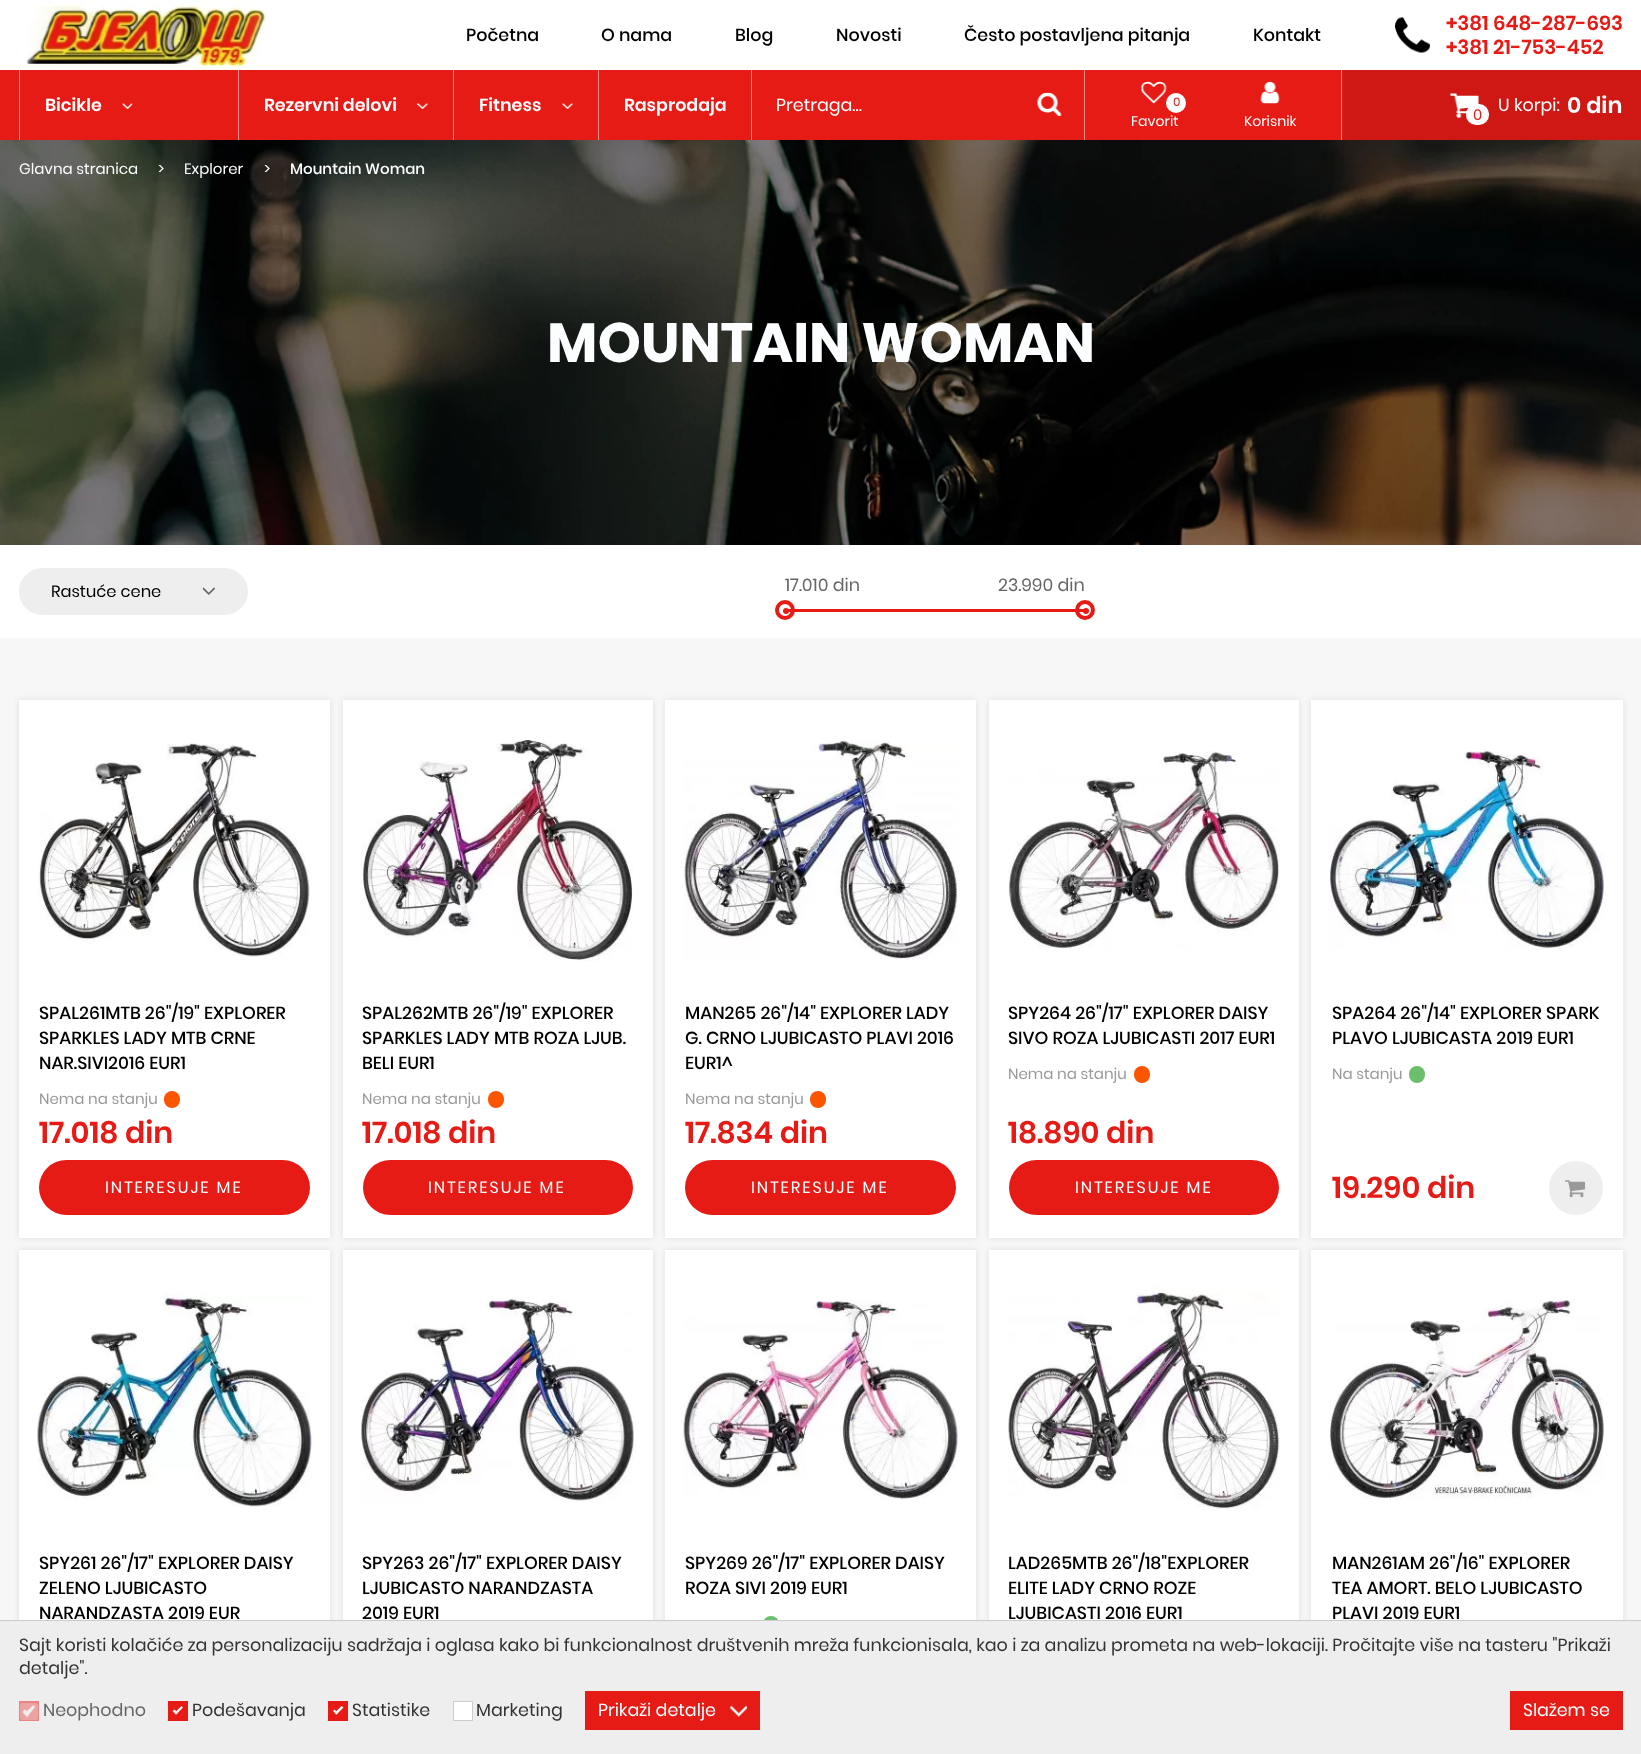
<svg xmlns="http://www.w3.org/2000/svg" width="1641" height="1754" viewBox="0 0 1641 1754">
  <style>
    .t1 { font: 500 17.5px Poppins; fill: #000; }
    .t2 { font: 600 20px Poppins; fill: #e61b15; }
    .t3 { font: 600 17.5px Poppins; fill: #fbfdff; }
    .t4 { font: 17.5px Poppins; fill: #fbfdff; }
    .t5 { font: 12px Poppins; fill: #e61b15; }
    .t6 { font: 14px Poppins; fill: #fbfdff; }
    .t7 { font: 600 22.5px Poppins; fill: #fbfdff; }
    .t8 { font: 15px Poppins; fill: #e61b15; }
    .t9 { font: 15px Poppins; fill: #fbfdff; }
    .t10 { font: 500 15px Poppins; fill: #fbfdff; }
    .t11 { font: bold 55.25px Poppins; fill: #fbfdff; }
    .t12 { font: 16.25px Poppins; fill: #000; }
    .t13 { font: 17.5px Poppins; fill: #666; }
    .t14 { font: 15px Poppins; fill: #999; }
    .t15 { font: 600 30px Poppins; fill: #e61b15; }
    .t16 { font: 16.25px Poppins; letter-spacing: 2px; fill: #fbfdff; }
    .t17 { font: 17.5px Poppins; fill: #333; }
  </style>
  <rect width="100%" height="100%" fill="#fff"/>
  <image x="26" y="0" width="242" height="70" href="images/1.png"/>
  <text x="466" y="41" class="t1">Početna</text>
  <text x="601" y="41" class="t1">O nama</text>
  <text x="735" y="41" class="t1">Blog</text>
  <text x="836" y="41" class="t1">Novosti</text>
  <text x="964" y="41" class="t1">Često postavljena pitanja</text>
  <text x="1253" y="41" class="t1">Kontakt</text>
  <image x="1395" y="17" width="35" height="36" href="images/2.png"/>
  <text x="1446" y="30" class="t2">+381 648-287-693</text>
  <text x="1446" y="54" class="t2">+381 21-753-452</text>
  <rect x="0" y="70" width="751" height="70" fill="#e61b15"/>
  <rect x="1343" y="70" width="298" height="70" fill="#cf1813"/>
  <rect x="19" y="70" width="1" height="70" fill="#f38d8a"/>
  <text x="45" y="111" class="t3">Bicikle</text>
  <image x="122" y="103" width="11" height="7" href="images/3.png"/>
  <rect x="238" y="70" width="1" height="70" fill="#f38d8a"/>
  <text x="264" y="111" class="t3">Rezervni delovi</text>
  <image x="417" y="103" width="11" height="6" href="images/4.png"/>
  <rect x="453" y="70" width="1" height="70" fill="#f38d8a"/>
  <text x="479" y="111" class="t3">Fitness</text>
  <image x="562" y="103" width="11" height="6" href="images/5.png"/>
  <rect x="598" y="70" width="1" height="70" fill="#f38d8a"/>
  <text x="624" y="111" class="t3">Rasprodaja</text>
  <rect x="752" y="70" width="332" height="70" fill="#e61b15"/>
  <rect x="1084" y="70" width="1" height="70" fill="#f38d8a"/>
  <rect x="751" y="70" width="1" height="70" fill="#f38d8a"/>
  <text x="776" y="111" class="t4">Pretraga…</text>
  <image x="1037" y="92" width="25" height="24" href="images/6.png"/>
  <rect x="1085" y="70" width="258" height="70" fill="#e61b15"/>
  <rect x="1341" y="70" width="1" height="70" fill="#f38d8a"/>
  <image x="1141" y="81" width="26" height="23" href="images/7.png"/>
  <circle cx="1176" cy="103" r="10" fill="#fff"/>
  <text x="1173" y="106" class="t5">0</text>
  <text x="1131" y="126" class="t6">Favorit</text>
  <image x="1260" y="81" width="20" height="23" href="images/8.png"/>
  <text x="1244" y="126" class="t6">Korisnik</text>
  <image x="1449" y="93" width="30" height="25" href="images/9.png"/>
  <text x="1498" y="111" class="t4">U korpi:</text>
  <text x="1567" y="113" class="t7">0 din</text>
  <rect x="1466" y="104" width="23" height="21" rx="10" fill="#fff"/>
  <text x="1473" y="120" class="t8">0</text>
  <image x="0" y="140" width="1641" height="405" href="images/10.png"/>
  <text x="19" y="174" class="t9">Glavna stranica</text>
  <text x="158" y="174" class="t9">&gt;</text>
  <text x="184" y="174" class="t9">Explorer</text>
  <text x="264" y="174" class="t9">&gt;</text>
  <text x="290" y="174" class="t10">Mountain Woman</text>
  <text x="547" y="362" class="t11">MOUNTAIN WOMAN</text>
  <rect x="19" y="568" width="229" height="47" rx="23.5" fill="#eee"/>
  <text x="51" y="597" class="t12">Rastuće cene</text>
  <image x="202" y="587" width="13" height="8" href="images/11.png"/>
  <text x="785" y="591" class="t13">17.010 din</text>
  <text x="998" y="591" class="t13">23.990 din</text>
  <rect x="785" y="609" width="300" height="3" fill="#e61b15"/>
  <circle cx="786" cy="611" r="3" fill="#e61b15"/>
  <circle cx="785" cy="610" r="8" fill="none" stroke="#e61b15" stroke-width="4"/>
  <circle cx="1086" cy="611" r="3" fill="#e61b15"/>
  <circle cx="1085" cy="610" r="8" fill="none" stroke="#e61b15" stroke-width="4"/>
  <rect x="0" y="638" width="1641" height="982" fill="#f7f7f7"/>
  <rect x="19" y="700" width="311" height="538" fill="#0000001a" filter="blur(3px)"/>
  <rect x="19" y="700" width="311" height="538" fill="#fff"/>
  <image x="38" y="743" width="272" height="214" href="images/12.png"/>
  <text x="39" y="1019" class="t1">SPAL261MTB 26"/19" EXPLORER</text>
  <text x="39" y="1044" class="t1">SPARKLES LADY MTB CRNE</text>
  <text x="39" y="1069" class="t1">NAR.SIVI2016 EUR1</text>
  <text x="39" y="1104" class="t14">Nema na stanju</text>
  <rect x="164" y="1091" width="16" height="17" rx="8" fill="#fc5500"/>
  <text x="39" y="1143" class="t15">17.018 din</text>
  <rect x="39" y="1160" width="271" height="55" rx="27.5" fill="#e61b15"/>
  <text x="105" y="1193" class="t16">INTERESUJE ME</text>
  <rect x="343" y="700" width="310" height="538" fill="#0000001a" filter="blur(3px)"/>
  <rect x="343" y="700" width="310" height="538" fill="#fff"/>
  <image x="361" y="740" width="272" height="221" href="images/13.png"/>
  <text x="362" y="1019" class="t1">SPAL262MTB 26"/19" EXPLORER</text>
  <text x="362" y="1044" class="t1">SPARKLES LADY MTB ROZA LJUB.</text>
  <text x="362" y="1069" class="t1">BELI EUR1</text>
  <text x="362" y="1104" class="t14">Nema na stanju</text>
  <rect x="488" y="1091" width="16" height="17" rx="8" fill="#fc5500"/>
  <text x="362" y="1143" class="t15">17.018 din</text>
  <rect x="363" y="1160" width="270" height="55" rx="27.5" fill="#e61b15"/>
  <text x="428" y="1193" class="t16">INTERESUJE ME</text>
  <rect x="665" y="700" width="311" height="538" fill="#0000001a" filter="blur(3px)"/>
  <rect x="665" y="700" width="311" height="538" fill="#fff"/>
  <image x="684" y="740" width="274" height="220" href="images/14.png"/>
  <text x="685" y="1019" class="t1">MAN265 26"/14" EXPLORER LADY</text>
  <text x="685" y="1044" class="t1">G. CRNO LJUBICASTO PLAVI 2016</text>
  <text x="685" y="1069" class="t1">EUR1^</text>
  <text x="685" y="1104" class="t14">Nema na stanju</text>
  <rect x="810" y="1091" width="16" height="17" rx="8" fill="#fc5500"/>
  <text x="685" y="1143" class="t15">17.834 din</text>
  <rect x="685" y="1160" width="271" height="55" rx="27.5" fill="#e61b15"/>
  <text x="751" y="1193" class="t16">INTERESUJE ME</text>
  <rect x="989" y="700" width="310" height="538" fill="#0000001a" filter="blur(3px)"/>
  <rect x="989" y="700" width="310" height="538" fill="#fff"/>
  <image x="1008" y="751" width="272" height="198" href="images/15.png"/>
  <text x="1008" y="1019" class="t1">SPY264 26"/17" EXPLORER DAISY</text>
  <text x="1008" y="1044" class="t1">SIVO ROZA LJUBICASTI 2017 EUR1</text>
  <text x="1008" y="1079" class="t14">Nema na stanju</text>
  <rect x="1134" y="1066" width="16" height="17" rx="8" fill="#fc5500"/>
  <text x="1008" y="1143" class="t15">18.890 din</text>
  <rect x="1009" y="1160" width="270" height="55" rx="27.5" fill="#e61b15"/>
  <text x="1075" y="1193" class="t16">INTERESUJE ME</text>
  <rect x="1311" y="700" width="312" height="538" fill="#0000001a" filter="blur(3px)"/>
  <rect x="1311" y="700" width="312" height="538" fill="#fff"/>
  <image x="1330" y="751" width="274" height="198" href="images/16.png"/>
  <text x="1332" y="1019" class="t1">SPA264 26"/14" EXPLORER SPARK</text>
  <text x="1332" y="1044" class="t1">PLAVO LJUBICASTA 2019 EUR1</text>
  <text x="1332" y="1079" class="t14">Na stanju</text>
  <rect x="1409" y="1066" width="16" height="17" rx="8" fill="#6bbe6b"/>
  <text x="1332" y="1198" class="t15">19.290 din</text>
  <circle cx="1576" cy="1188" r="27" fill="#eee"/>
  <image x="1565" y="1180" width="20" height="18" href="images/17.png"/>
  <rect x="19" y="1250" width="311" height="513" fill="#0000001a" filter="blur(3px)"/>
  <rect x="19" y="1250" width="311" height="370" fill="#fff"/>
  <image x="37" y="1293" width="275" height="214" href="images/18.png"/>
  <text x="39" y="1569" class="t1">SPY261 26"/17" EXPLORER DAISY</text>
  <text x="39" y="1594" class="t1">ZELENO LJUBICASTO</text>
  <text x="39" y="1619" class="t1">NARANDZASTA 2019 EUR</text>
  <rect x="343" y="1250" width="310" height="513" fill="#0000001a" filter="blur(3px)"/>
  <rect x="343" y="1250" width="310" height="370" fill="#fff"/>
  <image x="361" y="1298" width="273" height="205" href="images/19.png"/>
  <text x="362" y="1569" class="t1">SPY263 26"/17" EXPLORER DAISY</text>
  <text x="362" y="1594" class="t1">LJUBICASTO NARANDZASTA</text>
  <text x="362" y="1619" class="t1">2019 EUR1</text>
  <rect x="665" y="1250" width="311" height="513" fill="#0000001a" filter="blur(3px)"/>
  <rect x="665" y="1250" width="311" height="370" fill="#fff"/>
  <image x="683" y="1300" width="275" height="199" href="images/20.png"/>
  <text x="685" y="1569" class="t1">SPY269 26"/17" EXPLORER DAISY</text>
  <text x="685" y="1594" class="t1">ROZA SIVI 2019 EUR1</text>
  <rect x="763" y="1616" width="16" height="17" rx="8" fill="#6bbe6b"/>
  <rect x="989" y="1250" width="310" height="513" fill="#0000001a" filter="blur(3px)"/>
  <rect x="989" y="1250" width="310" height="370" fill="#fff"/>
  <image x="1008" y="1286" width="272" height="224" href="images/21.png"/>
  <text x="1008" y="1569" class="t1">LAD265MTB 26"/18"EXPLORER</text>
  <text x="1008" y="1594" class="t1">ELITE LADY CRNO ROZE</text>
  <text x="1008" y="1619" class="t1">LJUBICASTI 2016 EUR1</text>
  <rect x="1311" y="1250" width="312" height="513" fill="#0000001a" filter="blur(3px)"/>
  <rect x="1311" y="1250" width="312" height="370" fill="#fff"/>
  <image x="1330" y="1299" width="274" height="200" href="images/22.png"/>
  <text x="1332" y="1569" class="t1">MAN261AM 26"/16" EXPLORER</text>
  <text x="1332" y="1594" class="t1">TEA AMORT. BELO LJUBICASTO</text>
  <text x="1332" y="1619" class="t1">PLAVI 2019 EUR1</text>
  <rect x="0" y="1621" width="1641" height="133" fill="#eee"/>
  <rect x="0" y="1620" width="1641" height="1" fill="#ccc"/>
  <text x="19" y="1651" class="t17">Sajt koristi kolačiće za personalizaciju sadržaja i oglasa kako bi funkcionalnost društvenih mreža funkcionisala, kao i za analizu prometa na web-lokaciji. Pročitajte više na tasteru "Prikaži</text>
  <text x="19" y="1674" class="t17">detalje".</text>
  <rect x="19" y="1701" width="20" height="20" fill="#ea8582"/>
  <path d="M25 1713L32.5 1706L34 1707.5L27 1714.5Z" fill="#f7f7f7"/>
  <path d="M23.5 1711L25 1709.5L28.5 1713L27 1714.5Z" fill="#f7f7f7"/>
  <rect x="20" y="1703" width="18" height="17" rx="2.5" fill="#eeeeee4d"/>
  <path d="M23.5 1711L27 1715L34 1706" fill="none" stroke="#eee" stroke-width="2.8"/>
  <text x="43" y="1716" class="t13">Neophodno</text>
  <rect x="168" y="1701" width="20" height="20" fill="#e61b15"/>
  <path d="M174.5 1713L181.5 1706L183 1707.5L176 1714.5Z" fill="#fff"/>
  <path d="M172.5 1711L174.5 1709.5L178 1713L176 1714.5Z" fill="#fff"/>
  <text x="192" y="1716" class="t17">Podešavanja</text>
  <rect x="328" y="1701" width="20" height="20" fill="#e61b15"/>
  <path d="M334.5 1713L341.5 1706L343.5 1707.5L336.5 1714.5Z" fill="#fff"/>
  <path d="M333 1711L334.5 1709.5L338 1713L336.5 1714.5Z" fill="#fff"/>
  <text x="352" y="1716" class="t17">Statistike</text>
  <rect x="453.5" y="1701.5" width="19" height="19" fill="#fff" stroke="#ccc"/>
  <text x="476" y="1716" class="t17">Marketing</text>
  <rect x="585" y="1691" width="175" height="39" fill="#e61b15"/>
  <text x="598" y="1716" class="t4">Prikaži detalje</text>
  <image x="730" y="1705" width="18" height="12" href="images/23.png"/>
  <rect x="1510" y="1691" width="113" height="39" fill="#e61b15"/>
  <text x="1523" y="1716" class="t4">Slažem se</text>
</svg>
